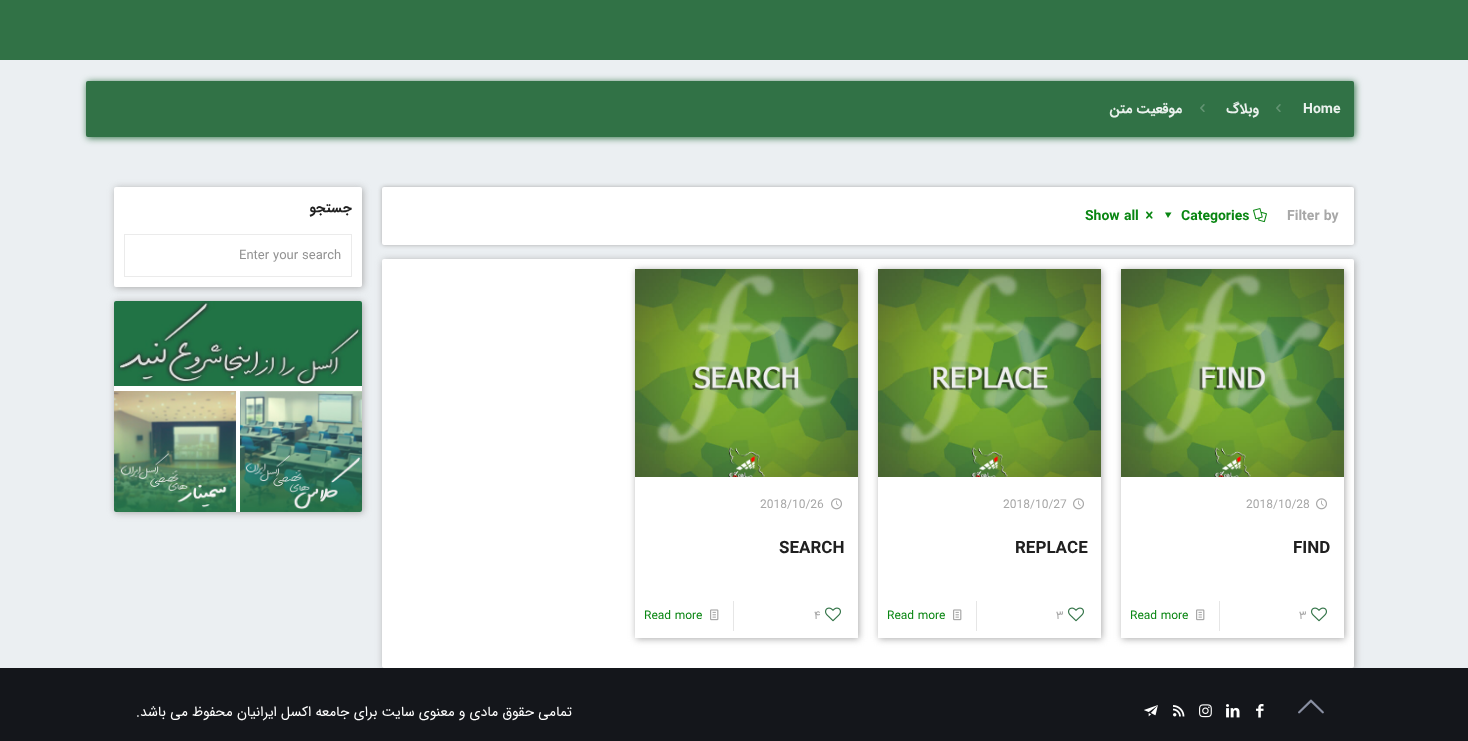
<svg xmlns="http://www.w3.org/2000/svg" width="1468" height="741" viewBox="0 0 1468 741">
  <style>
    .t1 { font: bold 14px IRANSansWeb; direction: rtl; fill: #eaf1ed; }
    .t2 { font: bold 14px IRANSansWeb; fill: #eaf1ed; }
    .t3 { font: bold 14px 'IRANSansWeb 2'; direction: rtl; fill: #202020; }
    .t4 { font: 13px IRANSansWeb; fill: #929292; }
    .t5 { font: bold 14px IRANSansWeb; fill: #098612; }
    .t6 { font: bold 14px IRANSansWeb; fill: #a8a8a8; }
    .t7 { font: 12px IRANSansWeb; fill: #a8a8a8; }
    .t8 { font: bold 17px 'IRANSansWeb 2'; fill: #202020; }
    .t9 { font: 12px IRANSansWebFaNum; fill: #098612; }
    .t10 { font: 12px IRANSansWebFaNum; fill: #a8a8a8; }
    .t11 { font: 14px IRANSansWeb; direction: rtl; fill: #fff; }
  </style>
  <defs>
    <clipPath id="clip1"><path d="M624 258H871V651H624ZM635 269H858V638H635Z" clip-rule="evenodd"/></clipPath>
    <clipPath id="clip2"><path d="M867 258H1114V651H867ZM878 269H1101V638H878Z" clip-rule="evenodd"/></clipPath>
    <clipPath id="clip3"><path d="M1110 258H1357V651H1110ZM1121 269H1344V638H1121Z" clip-rule="evenodd"/></clipPath>
  </defs>
  <rect width="100%" height="100%" fill="#ebeff2"/>
  <rect x="0" y="0" width="1468" height="60" fill="#317246"/>
  <rect x="87" y="82" width="1268" height="56" rx="2" fill="#317246" filter="blur(3.5px)"/>
  <rect x="86" y="81" width="1268" height="56" rx="2" fill="#317246"/>
  <text x="1182" y="113" class="t1">موقعیت متن</text>
  <image x="1200" y="104" width="5" height="8" href="images/1.png"/>
  <text x="1259" y="113" class="t1">وبلاگ</text>
  <image x="1276" y="104" width="5" height="8" href="images/1.png"/>
  <text x="1303" y="113" class="t2">Home</text>
  <rect x="115" y="188" width="248" height="100" rx="2" fill="#aaa" filter="blur(3.5px)"/>
  <rect x="114" y="187" width="248" height="100" rx="2" fill="#fff"/>
  <text x="352" y="212" class="t3">جستجو</text>
  <rect x="124.5" y="234.5" width="227" height="42" fill="none" stroke="#ebebeb"/>
  <text x="239" y="259" class="t4">Enter your search</text>
  <rect x="115" y="302" width="248" height="211" rx="2" fill="#aaa" filter="blur(3.5px)"/>
  <rect x="114" y="301" width="248" height="211" rx="2" fill="#fff"/>
  <image x="114" y="301" width="248" height="85" href="images/2.png"/>
  <image x="114" y="391" width="122" height="121" href="images/3.png"/>
  <image x="240" y="391" width="122" height="121" href="images/4.png"/>
  <rect x="382" y="187" width="972" height="58" rx="2" fill="#aaa" filter="blur(2px)"/>
  <rect x="382" y="187" width="972" height="58" rx="2" fill="#fff"/>
  <text x="1085" y="220" class="t5">Show all</text>
  <image x="1146" y="211" width="7" height="8" href="images/5.png"/>
  <path d="M1171.5 212.5L1168 218L1165 212.5Z" fill="#098612"/>
  <text x="1181" y="220" class="t5">Categories</text>
  <image x="1253" y="208" width="14" height="15" href="images/6.png"/>
  <text x="1287" y="220" class="t6">Filter by</text>
  <rect x="383" y="260" width="972" height="409" rx="2" fill="#aaa" filter="blur(3.5px)"/>
  <rect x="382" y="259" width="972" height="409" rx="2" fill="#fff"/>
  <g clip-path="url(#clip1)">
    <rect x="636" y="270" width="223" height="369" fill="#aaa" filter="blur(3.5px)"/>
  </g>
  <image x="635" y="269" width="223" height="208" href="images/7.png"/>
  <text x="760" y="508" class="t7">2018/10/26</text>
  <image x="831" y="498" width="11" height="12" href="images/8.png"/>
  <text x="779" y="553" class="t8">SEARCH</text>
  <rect x="733" y="601" width="1" height="30" fill="#e6e6e6"/>
  <text x="644" y="619" class="t9">Read more</text>
  <image x="710" y="609" width="9" height="12" href="images/9.png"/>
  <text x="814" y="619" class="t10">4</text>
  <image x="825" y="607" width="16" height="15" href="images/10.png"/>
  <g clip-path="url(#clip2)">
    <rect x="879" y="270" width="223" height="369" fill="#aaa" filter="blur(3.5px)"/>
  </g>
  <image x="878" y="269" width="223" height="208" href="images/11.png"/>
  <text x="1003" y="508" class="t7">2018/10/27</text>
  <image x="1073" y="498" width="11" height="12" href="images/8.png"/>
  <text x="1015" y="553" class="t8">REPLACE</text>
  <rect x="976" y="601" width="1" height="30" fill="#e6e6e6"/>
  <text x="887" y="619" class="t9">Read more</text>
  <image x="953" y="609" width="9" height="12" href="images/9.png"/>
  <text x="1056" y="619" class="t10">3</text>
  <image x="1068" y="607" width="16" height="15" href="images/10.png"/>
  <g clip-path="url(#clip3)">
    <rect x="1122" y="270" width="223" height="369" fill="#aaa" filter="blur(3.5px)"/>
  </g>
  <image x="1121" y="269" width="223" height="208" href="images/12.png"/>
  <text x="1246" y="508" class="t7">2018/10/28</text>
  <image x="1316" y="498" width="11" height="12" href="images/8.png"/>
  <text x="1293" y="553" class="t8">FIND</text>
  <rect x="1219" y="601" width="1" height="30" fill="#e6e6e6"/>
  <text x="1130" y="619" class="t9">Read more</text>
  <image x="1196" y="609" width="9" height="12" href="images/9.png"/>
  <text x="1299" y="619" class="t10">3</text>
  <image x="1311" y="607" width="16" height="15" href="images/10.png"/>
  <rect x="0" y="668" width="1468" height="73" fill="#14161b"/>
  <text x="572" y="716" class="t11">تمامی حقوق مادی و معنوی سایت برای جامعه اکسل ایرانیان محفوظ می باشد.</text>
  <image x="1144" y="705" width="14" height="12" href="images/13.png"/>
  <image x="1173" y="705" width="12" height="12" href="images/14.png"/>
  <image x="1199" y="704" width="13" height="14" href="images/15.png"/>
  <image x="1226" y="704" width="14" height="14" href="images/16.png"/>
  <image x="1256" y="704" width="8" height="14" href="images/17.png"/>
  <image x="1298" y="699" width="26" height="15" href="images/18.png"/>
</svg>
